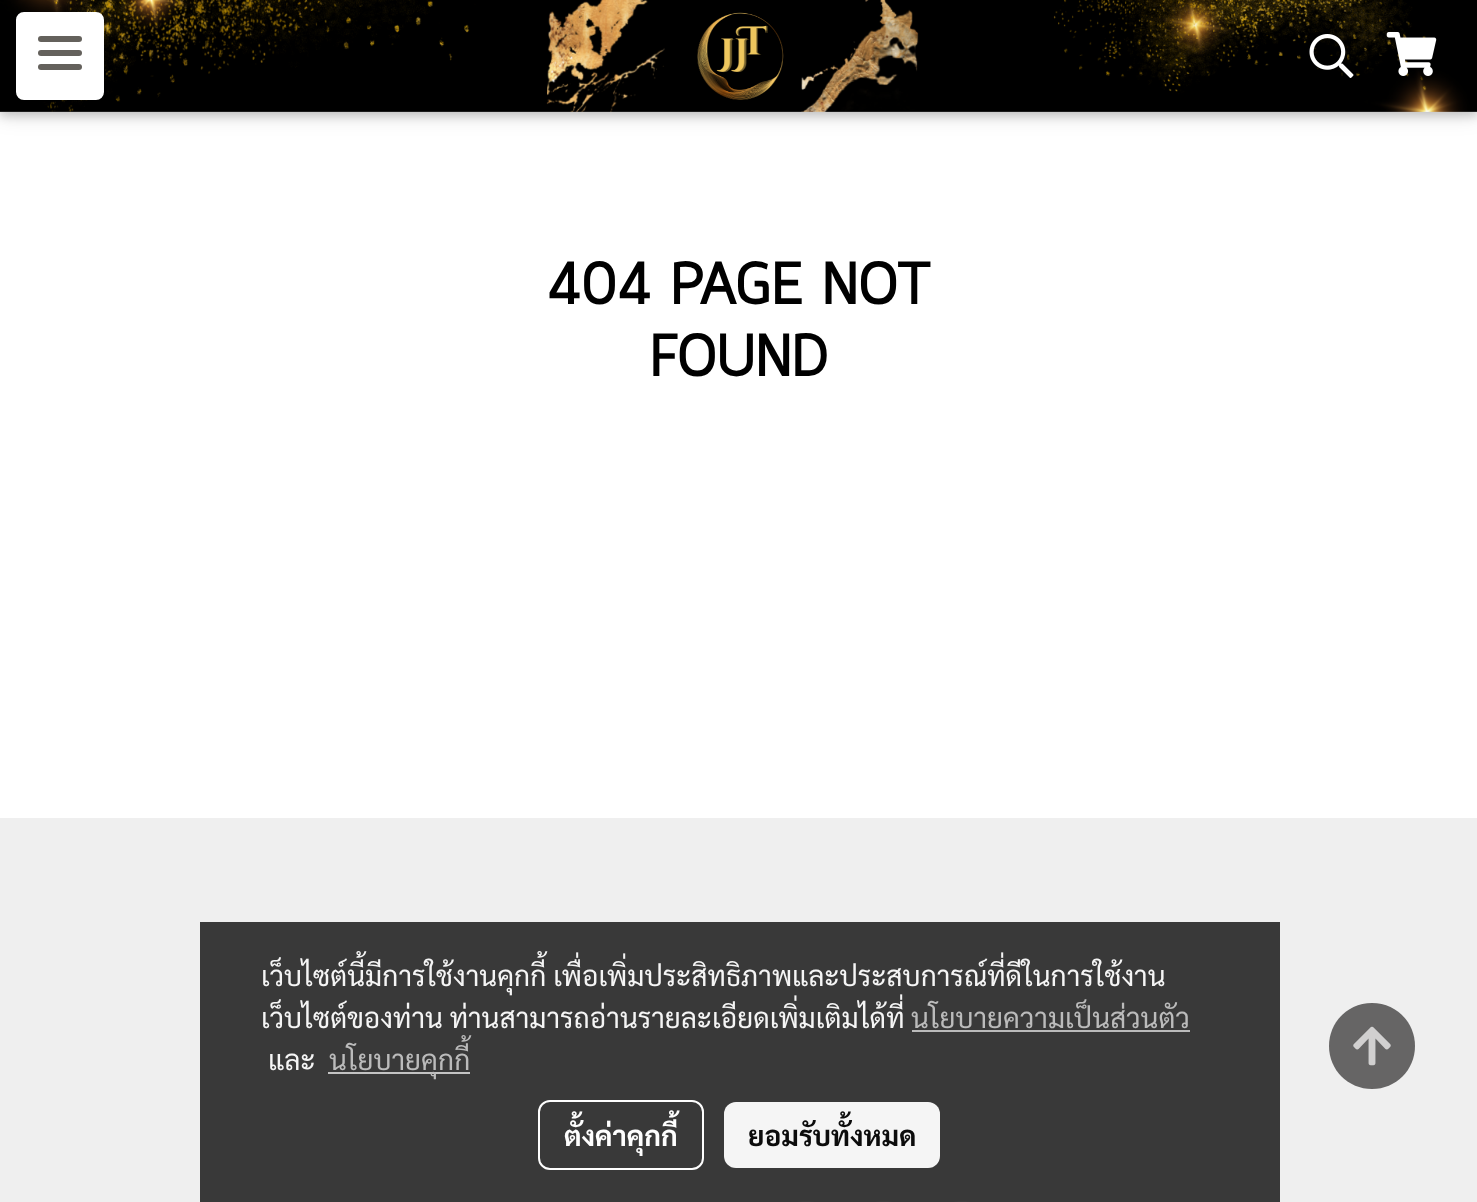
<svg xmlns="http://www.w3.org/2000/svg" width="1477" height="1202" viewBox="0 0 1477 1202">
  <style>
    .t1 { font: bold 60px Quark; fill: #000; }
    .t2 { font: 28px Sarabun; fill: #f5f5f5; }
    .t3 { font: 28px Sarabun; fill: #bbb; }
    .t4 { font: bold 28px Sarabun; fill: #fefefe; }
    .t5 { font: bold 28px Sarabun; fill: #0c0c0c; }
  </style>
  <rect width="100%" height="100%" fill="#fff"/>
  <rect x="0" y="4" width="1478" height="112" fill="#0000001f" filter="blur(10px)"/>
  <rect x="0" y="4" width="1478" height="112" fill="#00000029" filter="blur(5px)"/>
  <image x="0" y="0" width="1477" height="112" href="images/1.png"/>
  <rect x="17" y="13" width="86" height="86" rx="7" fill="#fff" stroke="#fff" stroke-width="2"/>
  <rect x="38" y="50" width="44" height="6" rx="3" fill="#64615c"/>
  <rect x="38" y="36" width="44" height="6" rx="3" fill="#64615c"/>
  <rect x="38" y="64" width="44" height="6" rx="3" fill="#64615c"/>
  <image x="697" y="12" width="87" height="88" href="images/2.png"/>
  <image x="1309" y="34" width="45" height="44" href="images/3.png"/>
  <image x="1386" y="32" width="51" height="44" href="images/4.png"/>
  <text x="547" y="304" class="t1">404 PAGE NOT</text>
  <text x="650" y="376" class="t1">FOUND</text>
  <rect x="0" y="818" width="1477" height="384" fill="#efefef"/>
  <path d="M806 1201C787 1201 771 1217 771 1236C771 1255 787 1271 806 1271C825 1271 841 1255 841 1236C841 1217 825 1201 806 1201Z" fill="#fff"/>
  <path d="M884 1201C865 1201 849 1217 849 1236C849 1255 865 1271 884 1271C903 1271 919 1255 919 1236C919 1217 903 1201 884 1201Z" fill="#fff"/>
  <path d="M962 1201C943 1201 927 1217 927 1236C927 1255 943 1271 962 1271C981 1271 997 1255 997 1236C997 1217 981 1201 962 1201Z" fill="#fff"/>
  <rect x="200" y="922" width="1080" height="280" fill="#000000c2"/>
  <text x="261" y="986" class="t2">เว็บไซต์นี้มีการใช้งานคุกกี้ เพื่อเพิ่มประสิทธิภาพและประสบการณ์ที่ดีในการใช้งาน</text>
  <text x="261" y="1028" class="t2">เว็บไซต์ของท่าน ท่านสามารถอ่านรายละเอียดเพิ่มเติมได้ที่</text>
  <text x="911" y="1028" class="t3">นโยบายความเป็นส่วนตัว</text>
  <rect x="912" y="1030" width="278" height="2" fill="#c2c2c2f2"/>
  <text x="268" y="1070" class="t2">และ</text>
  <rect x="328" y="1072" width="142" height="2" fill="#c4c4c4"/>
  <text x="329" y="1070" class="t3">นโยบายคุกกี้</text>
  <rect x="539" y="1101" width="164" height="68" rx="11" fill="none" stroke="#fefefe" stroke-width="2"/>
  <text x="564" y="1146" class="t4">ตั้งค่าคุกกี้</text>
  <rect x="724" y="1102" width="216" height="66" rx="12" fill="#fffffff2"/>
  <text x="748" y="1146" class="t5">ยอมรับทั้งหมด</text>
  <path d="M1372 1003C1348 1003 1329 1022 1329 1046C1329 1070 1348 1089 1372 1089C1396 1089 1415 1070 1415 1046C1415 1022 1396 1003 1372 1003Z" fill="#666565"/>
  <image x="1353" y="1026" width="38" height="40" href="images/5.png"/>
</svg>
